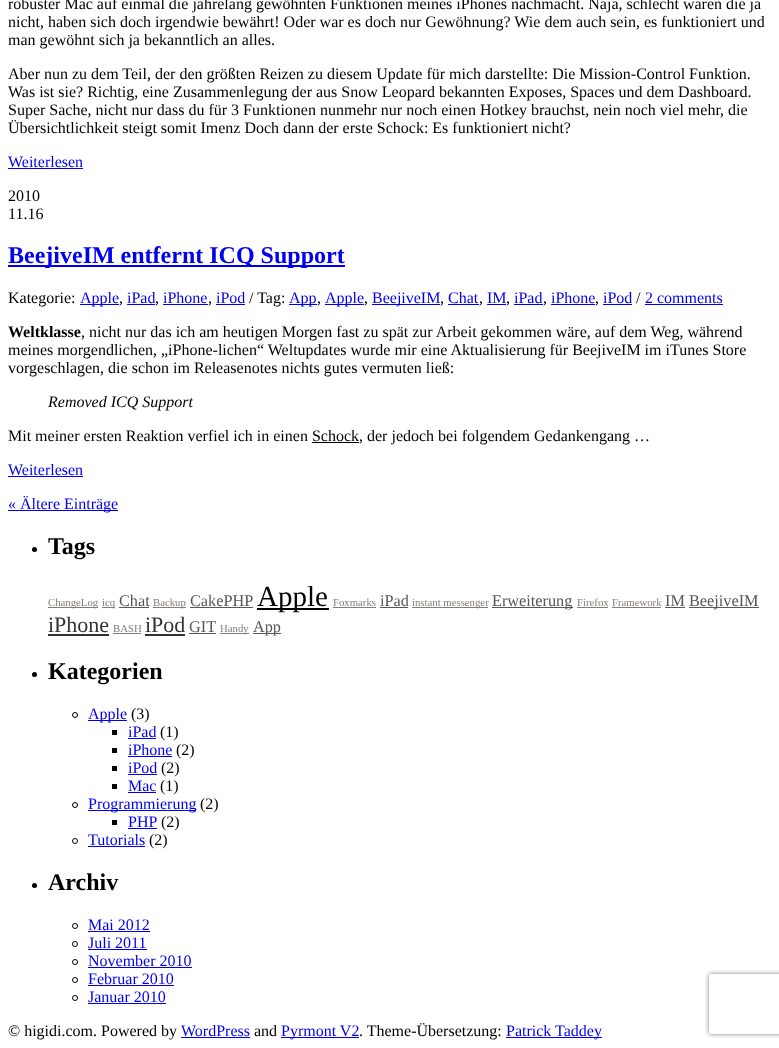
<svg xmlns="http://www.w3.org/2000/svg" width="779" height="1048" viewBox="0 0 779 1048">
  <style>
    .t1 { font: 16px Liberation Serif; fill: #000; }
    .t2 { font: 16px Liberation Serif; fill: #00e; }
    .t3 { font: bold 24px Liberation Serif; fill: #00e; }
    .t4 { font: bold 16px Liberation Serif; fill: #000; }
    .t5 { font: italic 16px Liberation Serif; fill: #000; }
    .t6 { font: bold 24px Liberation Serif; fill: #000; }
    .t7 { font: 10.75px Liberation Serif; fill: #807d7a; }
    .t8 { font: 16.25px Liberation Serif; fill: #595755; }
    .t9 { font: 29px Liberation Serif; fill: #000; }
    .t10 { font: 22px Liberation Serif; fill: #333230; }
  </style>
  <defs>
    <clipPath id="clip1"><path d="M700 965H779V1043H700ZM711 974H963C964 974 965 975 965 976V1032C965 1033 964 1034 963 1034H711C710 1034 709 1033 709 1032V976C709 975 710 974 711 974Z" clip-rule="evenodd"/></clipPath>
  </defs>
  <rect width="100%" height="100%" fill="#fff"/>
  <text x="8" y="9" class="t1">robuster Mac auf einmal die jahrelang gewöhnten Funktionen meines iPhones nachmacht. Naja, schlecht waren die ja</text>
  <text x="8" y="27" class="t1">nicht, haben sich doch irgendwie bewährt! Oder war es doch nur Gewöhnung? Wie dem auch sein, es funktioniert und</text>
  <text x="8" y="45" class="t1">man gewöhnt sich ja bekanntlich an alles.</text>
  <text x="8" y="79" class="t1">Aber nun zu dem Teil, der den größten Reizen zu diesem Update für mich darstellte: Die Mission-Control Funktion.</text>
  <text x="8" y="97" class="t1">Was ist sie? Richtig, eine Zusammenlegung der aus Snow Leopard bekannten Exposes, Spaces und dem Dashboard.</text>
  <text x="8" y="115" class="t1">Super Sache, nicht nur dass du für 3 Funktionen nunmehr nur noch einen Hotkey brauchst, nein noch viel mehr, die</text>
  <text x="8" y="133" class="t1">Übersichtlichkeit steigt somit Imenz Doch dann der erste Schock: Es funktioniert nicht?</text>
  <text x="8" y="167" class="t2">Weiterlesen</text>
  <rect x="8" y="168" width="75" height="1" fill="#00e"/>
  <text x="8" y="201" class="t1">2010</text>
  <text x="8" y="219" class="t1">11.16</text>
  <rect x="8" y="265" width="337" height="2" fill="#00e"/>
  <text x="8" y="263" class="t3">BeejiveIM entfernt ICQ Support</text>
  <text x="8" y="303" class="t1">Kategorie:</text>
  <rect x="80" y="304" width="39" height="1" fill="#00e"/>
  <text x="80" y="303" class="t2">Apple</text>
  <text x="119" y="303" class="t1">,</text>
  <text x="127" y="303" class="t2">iPad</text>
  <text x="155" y="303" class="t1">,</text>
  <rect x="127" y="304" width="28" height="1" fill="#00e"/>
  <text x="163" y="303" class="t2">iPhone</text>
  <text x="208" y="303" class="t1">,</text>
  <rect x="163" y="304" width="45" height="1" fill="#00e"/>
  <rect x="216" y="304" width="29" height="1" fill="#00e"/>
  <text x="216" y="303" class="t2">iPod</text>
  <text x="249" y="303" class="t1">/ Tag:</text>
  <rect x="289" y="304" width="28" height="1" fill="#00e"/>
  <text x="289" y="303" class="t2">App</text>
  <text x="317" y="303" class="t1">,</text>
  <rect x="325" y="304" width="39" height="1" fill="#00e"/>
  <text x="325" y="303" class="t2">Apple</text>
  <text x="364" y="303" class="t1">,</text>
  <rect x="372" y="304" width="68" height="1" fill="#00e"/>
  <text x="372" y="303" class="t2">BeejiveIM</text>
  <text x="440" y="303" class="t1">,</text>
  <text x="448" y="303" class="t2">Chat</text>
  <text x="479" y="303" class="t1">,</text>
  <rect x="448" y="304" width="31" height="1" fill="#00e"/>
  <text x="487" y="303" class="t2">IM</text>
  <text x="506" y="303" class="t1">,</text>
  <rect x="487" y="304" width="19" height="1" fill="#00e"/>
  <text x="514" y="303" class="t2">iPad</text>
  <text x="543" y="303" class="t1">,</text>
  <rect x="514" y="304" width="29" height="1" fill="#00e"/>
  <text x="551" y="303" class="t2">iPhone</text>
  <text x="595" y="303" class="t1">,</text>
  <rect x="551" y="304" width="44" height="1" fill="#00e"/>
  <rect x="603" y="304" width="29" height="1" fill="#00e"/>
  <text x="603" y="303" class="t2">iPod</text>
  <text x="636" y="303" class="t1">/</text>
  <text x="645" y="303" class="t2">2 comments</text>
  <rect x="645" y="304" width="78" height="1" fill="#00e"/>
  <text x="8" y="337" class="t4">Weltklasse</text>
  <text x="81" y="337" class="t1">, nicht nur das ich am heutigen Morgen fast zu spät zur Arbeit gekommen wäre, auf dem Weg, während</text>
  <text x="8" y="355" class="t1">meines morgendlichen, „iPhone-lichen“ Weltupdates wurde mir eine Aktualisierung für BeejiveIM im iTunes Store</text>
  <text x="8" y="373" class="t1">vorgeschlagen, die schon im Releasenotes nichts gutes vermuten ließ:</text>
  <text x="48" y="407" class="t5">Removed ICQ Support</text>
  <text x="8" y="441" class="t1">Mit meiner ersten Reaktion verfiel ich in einen Schock, der jedoch bei folgendem Gedankengang …</text>
  <rect x="312" y="442" width="47" height="1" fill="#000"/>
  <text x="8" y="475" class="t2">Weiterlesen</text>
  <rect x="8" y="476" width="75" height="1" fill="#00e"/>
  <rect x="8" y="510" width="110" height="1" fill="#00e"/>
  <text x="8" y="509" class="t2">« Ältere Einträge</text>
  <circle cx="34.5" cy="549.5" r="2.5" fill="#000"/>
  <text x="48" y="554" class="t6">Tags</text>
  <rect x="48" y="607" width="50" height="1" fill="#807d7a"/>
  <text x="48" y="606" class="t7">ChangeLog</text>
  <rect x="102" y="607" width="13" height="1" fill="#807d7a"/>
  <text x="102" y="606" class="t7">icq</text>
  <text x="119" y="606" class="t8">Chat</text>
  <rect x="119" y="607" width="30" height="1" fill="#595755"/>
  <rect x="153" y="607" width="33" height="1" fill="#807d7a"/>
  <text x="153" y="606" class="t7">Backup</text>
  <text x="190" y="606" class="t8">CakePHP</text>
  <rect x="190" y="607" width="63" height="1" fill="#595755"/>
  <rect x="257" y="608" width="72" height="2" fill="#000"/>
  <text x="257" y="606" class="t9">Apple</text>
  <text x="333" y="606" class="t7">Foxmarks</text>
  <rect x="333" y="607" width="43" height="1" fill="#807d7a"/>
  <text x="380" y="606" class="t8">iPad</text>
  <rect x="380" y="607" width="28" height="1" fill="#595755"/>
  <rect x="412" y="607" width="76" height="1" fill="#807d7a"/>
  <text x="412" y="606" class="t7">instant messenger</text>
  <rect x="492" y="607" width="81" height="1" fill="#595755"/>
  <text x="492" y="606" class="t8">Erweiterung</text>
  <text x="577" y="606" class="t7">Firefox</text>
  <rect x="577" y="607" width="31" height="1" fill="#807d7a"/>
  <text x="612" y="606" class="t7">Framework</text>
  <rect x="612" y="607" width="49" height="1" fill="#807d7a"/>
  <text x="665" y="606" class="t8">IM</text>
  <rect x="665" y="607" width="20" height="1" fill="#595755"/>
  <rect x="689" y="607" width="70" height="1" fill="#595755"/>
  <text x="689" y="606" class="t8">BeejiveIM</text>
  <text x="48" y="632" class="t10">iPhone</text>
  <rect x="48" y="634" width="61" height="2" fill="#333230"/>
  <text x="113" y="632" class="t7">BASH</text>
  <rect x="113" y="633" width="28" height="1" fill="#807d7a"/>
  <text x="145" y="632" class="t10">iPod</text>
  <rect x="145" y="634" width="40" height="2" fill="#333230"/>
  <text x="189" y="632" class="t8">GIT</text>
  <rect x="189" y="633" width="27" height="1" fill="#595755"/>
  <rect x="220" y="633" width="29" height="1" fill="#807d7a"/>
  <text x="220" y="632" class="t7">Handy</text>
  <rect x="253" y="633" width="28" height="1" fill="#595755"/>
  <text x="253" y="632" class="t8">App</text>
  <circle cx="34.5" cy="674.5" r="2.5" fill="#000"/>
  <text x="48" y="679" class="t6">Kategorien</text>
  <circle cx="75" cy="715" r="2.5" fill="none" stroke="#000"/>
  <rect x="88" y="720" width="39" height="1" fill="#00e"/>
  <text x="88" y="719" class="t2">Apple</text>
  <text x="131" y="719" class="t1">(3)</text>
  <rect x="112" y="730" width="5" height="5" fill="#000"/>
  <text x="128" y="737" class="t2">iPad</text>
  <rect x="128" y="738" width="28" height="1" fill="#00e"/>
  <text x="160" y="737" class="t1">(1)</text>
  <rect x="112" y="748" width="5" height="5" fill="#000"/>
  <text x="128" y="755" class="t2">iPhone</text>
  <rect x="128" y="756" width="44" height="1" fill="#00e"/>
  <text x="176" y="755" class="t1">(2)</text>
  <rect x="112" y="766" width="5" height="5" fill="#000"/>
  <text x="128" y="773" class="t2">iPod</text>
  <rect x="128" y="774" width="29" height="1" fill="#00e"/>
  <text x="161" y="773" class="t1">(2)</text>
  <rect x="112" y="784" width="5" height="5" fill="#000"/>
  <text x="128" y="791" class="t2">Mac</text>
  <rect x="128" y="792" width="28" height="1" fill="#00e"/>
  <text x="160" y="791" class="t1">(1)</text>
  <circle cx="75" cy="805" r="2.5" fill="none" stroke="#000"/>
  <rect x="88" y="810" width="108" height="1" fill="#00e"/>
  <text x="88" y="809" class="t2">Programmierung</text>
  <text x="200" y="809" class="t1">(2)</text>
  <rect x="112" y="820" width="5" height="5" fill="#000"/>
  <text x="128" y="827" class="t2">PHP</text>
  <rect x="128" y="828" width="29" height="1" fill="#00e"/>
  <text x="161" y="827" class="t1">(2)</text>
  <circle cx="75" cy="841" r="2.5" fill="none" stroke="#000"/>
  <text x="88" y="845" class="t2">Tutorials</text>
  <rect x="88" y="846" width="57" height="1" fill="#00e"/>
  <text x="149" y="845" class="t1">(2)</text>
  <circle cx="34.5" cy="885.5" r="2.5" fill="#000"/>
  <text x="48" y="890" class="t6">Archiv</text>
  <circle cx="75" cy="926" r="2.5" fill="none" stroke="#000"/>
  <text x="88" y="930" class="t2">Mai 2012</text>
  <rect x="88" y="931" width="62" height="1" fill="#00e"/>
  <circle cx="75" cy="944" r="2.5" fill="none" stroke="#000"/>
  <text x="88" y="948" class="t2">Juli 2011</text>
  <rect x="88" y="949" width="59" height="1" fill="#00e"/>
  <circle cx="75" cy="962" r="2.5" fill="none" stroke="#000"/>
  <text x="88" y="966" class="t2">November 2010</text>
  <rect x="88" y="967" width="104" height="1" fill="#00e"/>
  <circle cx="75" cy="980" r="2.5" fill="none" stroke="#000"/>
  <text x="88" y="984" class="t2">Februar 2010</text>
  <rect x="88" y="985" width="86" height="1" fill="#00e"/>
  <circle cx="75" cy="998" r="2.5" fill="none" stroke="#000"/>
  <text x="88" y="1002" class="t2">Januar 2010</text>
  <rect x="88" y="1003" width="78" height="1" fill="#00e"/>
  <text x="8" y="1036" class="t1">© higidi.com. Powered by</text>
  <text x="181" y="1036" class="t2">WordPress</text>
  <rect x="181" y="1037" width="69" height="1" fill="#00e"/>
  <text x="254" y="1036" class="t1">and</text>
  <rect x="281" y="1037" width="78" height="1" fill="#00e"/>
  <text x="281" y="1036" class="t2">Pyrmont V2</text>
  <text x="359" y="1036" class="t1">. Theme-Übersetzung:</text>
  <rect x="506" y="1037" width="96" height="1" fill="#00e"/>
  <text x="506" y="1036" class="t2">Patrick Taddey</text>
  <g clip-path="url(#clip1)">
    <rect x="709" y="974" width="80" height="60" rx="2" fill="#808080" filter="blur(2.5px)"/>
  </g>
</svg>
